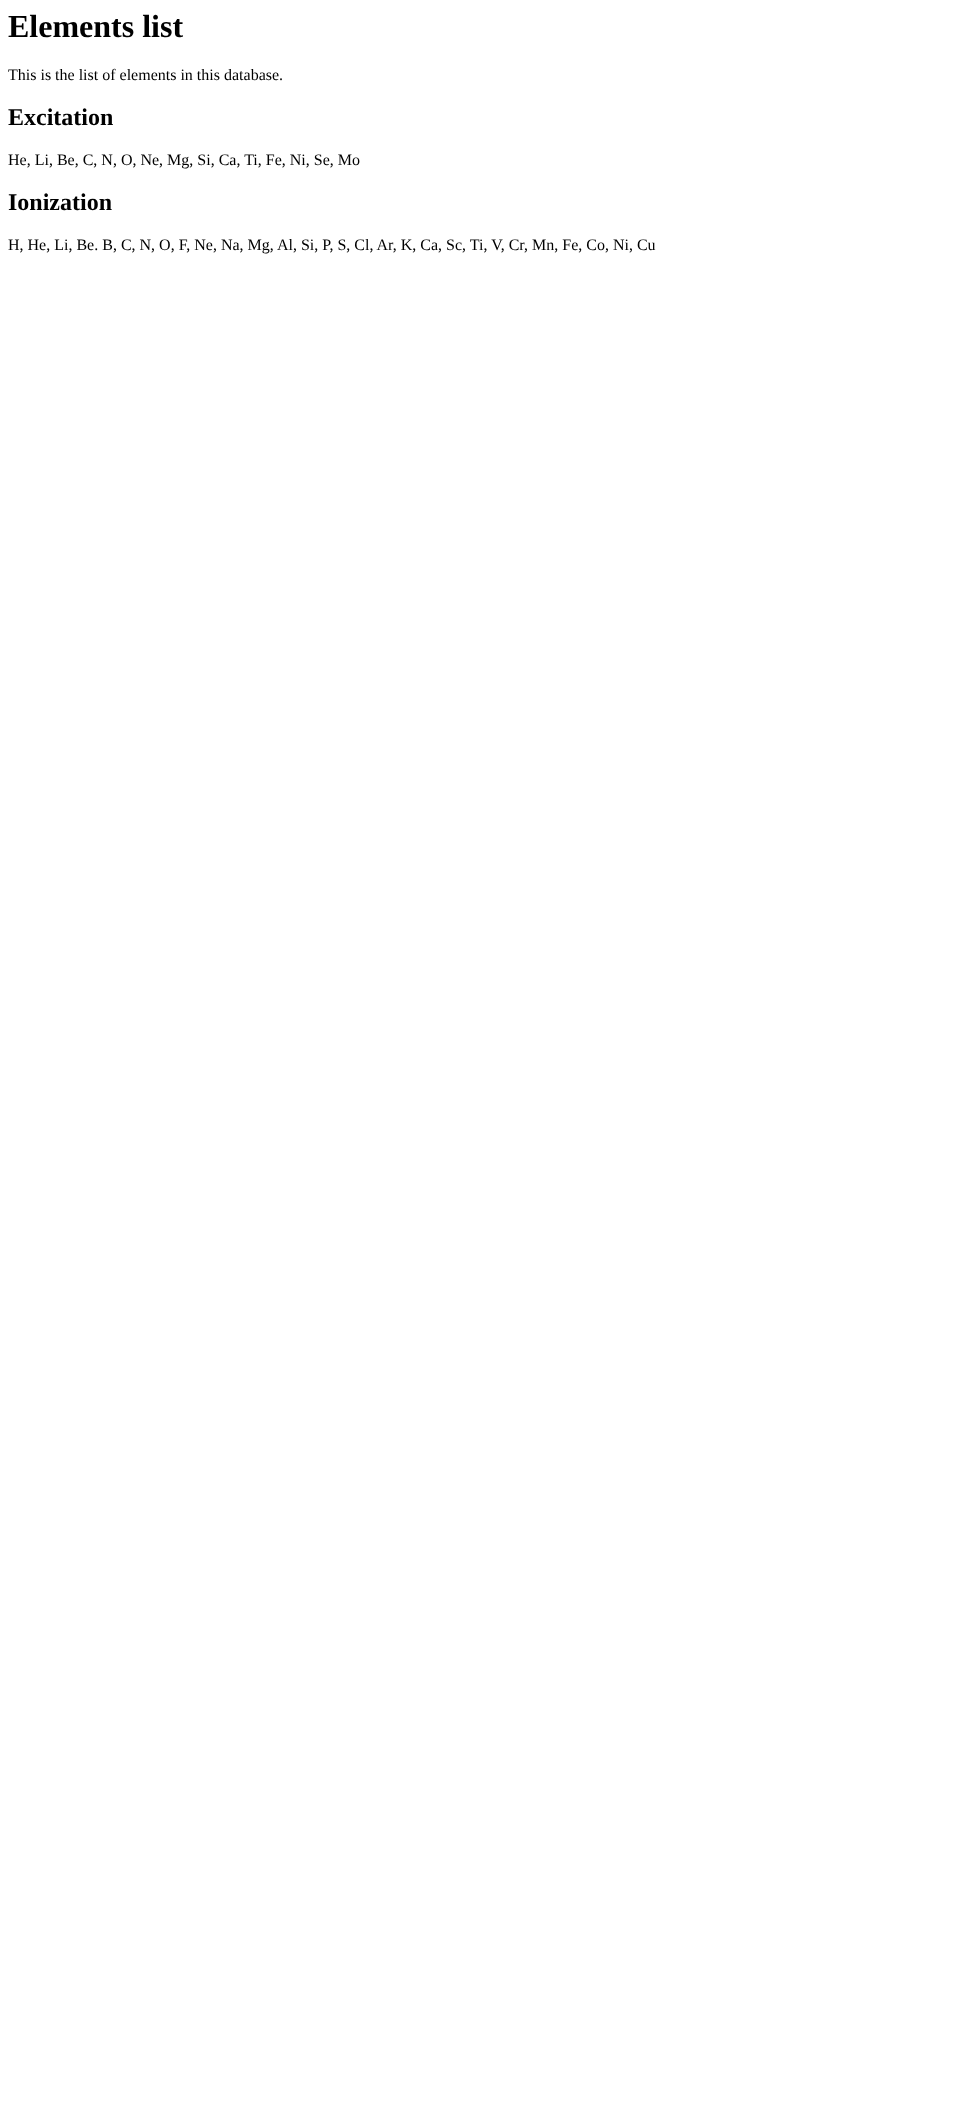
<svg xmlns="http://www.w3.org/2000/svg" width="967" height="2107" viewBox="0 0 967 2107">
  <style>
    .t1 { font: bold 32px Liberation Serif; fill: #000; }
    .t2 { font: 16px Liberation Serif; fill: #000; }
    .t3 { font: bold 24px Liberation Serif; fill: #000; }
  </style>
  <rect width="100%" height="100%" fill="#fff"/>
  <text x="8" y="37" class="t1">Elements list</text>
  <text x="8" y="80" class="t2">This is the list of elements in this database.</text>
  <text x="8" y="125" class="t3">Excitation</text>
  <text x="8" y="165" class="t2">He, Li, Be, C, N, O, Ne, Mg, Si, Ca, Ti, Fe, Ni, Se, Mo</text>
  <text x="8" y="210" class="t3">Ionization</text>
  <text x="8" y="250" class="t2">H, He, Li, Be. B, C, N, O, F, Ne, Na, Mg, Al, Si, P, S, Cl, Ar, K, Ca, Sc, Ti, V, Cr, Mn, Fe, Co, Ni, Cu</text>
</svg>
